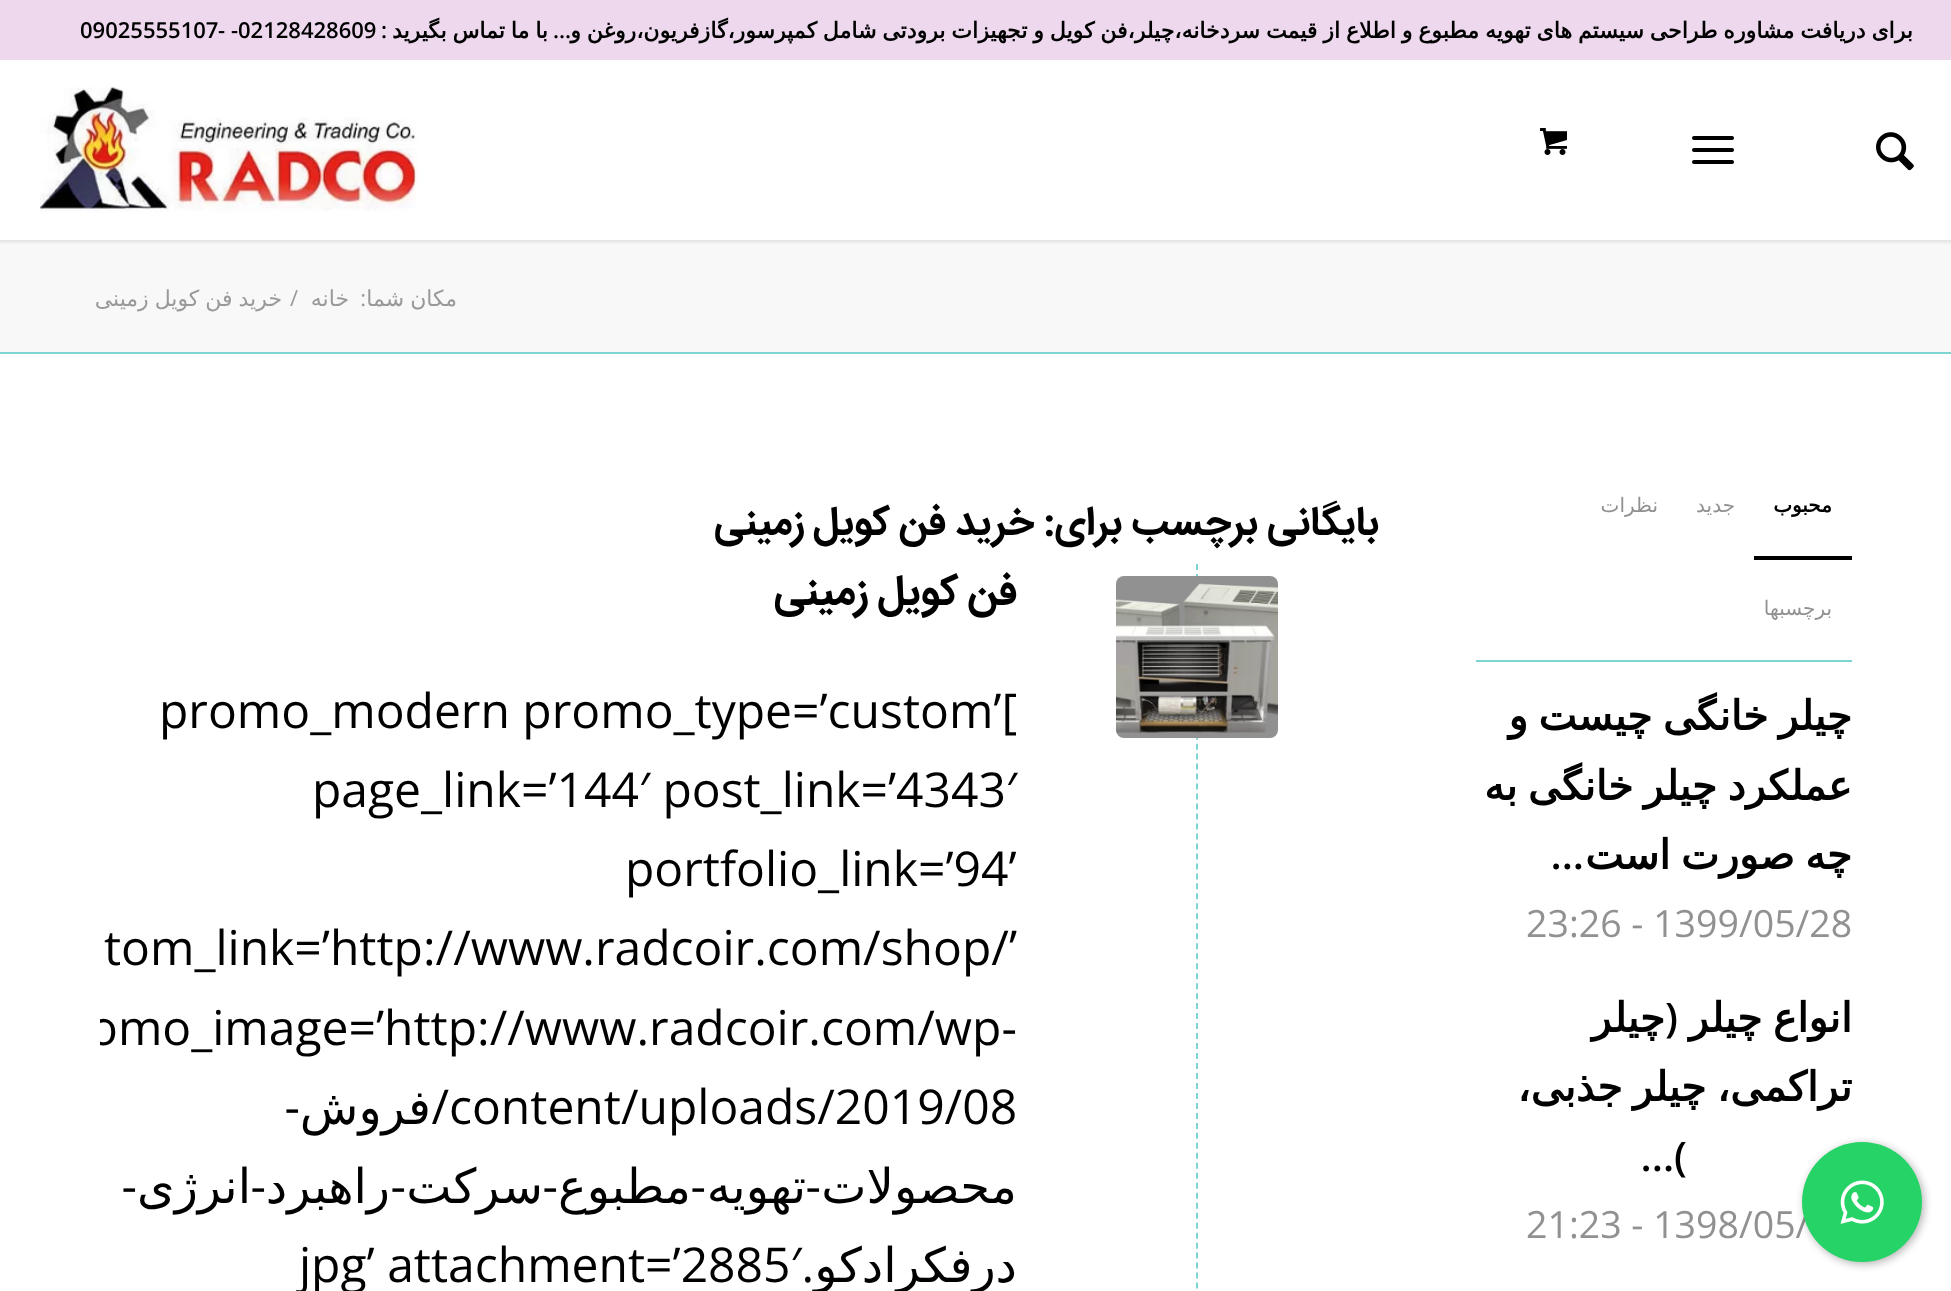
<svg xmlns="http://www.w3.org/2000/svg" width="1951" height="1291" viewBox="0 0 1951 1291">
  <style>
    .t1 { font: 600 22px Open Sans; direction: rtl; fill: #000; }
    .t2 { font: bold 22px DejaVu Sans; direction: rtl; fill: #000; }
    .t3 { font: 600 22px Open Sans; fill: #000; }
    .t4 { font: 22px DejaVu Sans; direction: rtl; fill: #999; }
    .t5 { font: 22px Open Sans; direction: rtl; fill: #999; }
    .t6 { font: 22px Open Sans; fill: #999; }
    .t7 { font: bold 20px DejaVu Sans; direction: rtl; fill: #000; }
    .t8 { font: 20px DejaVu Sans; direction: rtl; fill: #919191; }
    .t9 { font: bold 40.75px DejaVu Sans; direction: rtl; fill: #000; }
    .t10 { font: 600 40.75px Open Sans; direction: rtl; fill: #000; }
    .t11 { font: 37.5px Open Sans; fill: #919191; }
    .t12 { font: bold 40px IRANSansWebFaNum; direction: rtl; fill: #000; }
    .t13 { font: bold 42px IRANSansWebFaNum; direction: rtl; fill: #000; }
    .t14 { font: 48px Open Sans; fill: #000; }
    .t15 { font: 48px Open Sans; direction: rtl; fill: #000; }
    .t16 { font: 48px DejaVu Sans; direction: rtl; fill: #000; }
  </style>
  <defs>
    <clipPath id="clip1"><rect x="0" y="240" width="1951" height="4"/></clipPath>
    <clipPath id="clip2"><rect x="1476" y="662" width="376" height="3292" rx="4"/></clipPath>
    <clipPath id="clip3"><rect x="100" y="564" width="1016" height="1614"/></clipPath>
  </defs>
  <rect width="100%" height="100%" fill="#fff"/>
  <rect x="0" y="240" width="1951" height="112" fill="#f8f8f8"/>
  <g clip-path="url(#clip1)">
    <rect x="-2" y="-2" width="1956" height="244" fill="#0000001a" filter="blur(2px)"/>
  </g>
  <rect x="0" y="0" width="1951" height="60" fill="#edd8ed"/>
  <text x="571" y="38" class="t1">...</text>
  <text x="1913" y="38" word-spacing="-1.1" class="t2">برای دریافت مشاوره طراحی سیستم های تهویه مطبوع و اطلاع از قیمت سردخانه،چیلر،فن کویل و تجهیزات برودتی شامل کمپرسور،گازفریون،روغن و</text>
  <text x="548" y="38" word-spacing="-1.1" class="t2">با ما تماس بگیرید</text>
  <text x="387" y="38" class="t1">:</text>
  <text x="238" y="38" class="t3">02128428609</text>
  <text x="231" y="38" class="t3">-</text>
  <text x="218" y="38" class="t3">-</text>
  <text x="80" y="38" class="t3">09025555107</text>
  <image x="1876" y="132" width="38" height="39" href="images/1.png"/>
  <rect x="1692" y="148" width="42" height="4" rx="2" fill="#000"/>
  <rect x="1692" y="136" width="42" height="4" rx="2" fill="#000"/>
  <rect x="1692" y="160" width="42" height="4" rx="2" fill="#000"/>
  <image x="1540" y="128" width="27" height="27" href="images/2.png"/>
  <image x="40" y="87" width="378" height="125" href="images/3.png"/>
  <text x="457" y="306" word-spacing="-1" class="t4">مکان شما</text>
  <text x="366" y="306" class="t5">:</text>
  <text x="349" y="306" class="t4">خانه</text>
  <text x="290" y="306" class="t6">/</text>
  <text x="282" y="306" word-spacing="-1" class="t4">خرید فن کویل زمینی</text>
  <rect x="0" y="352" width="1951" height="2" fill="#7dd4d3"/>
  <rect x="1476" y="660" width="376" height="2" fill="#7dd4d3"/>
  <rect x="1754" y="556" width="98" height="4" fill="#000"/>
  <text x="1832" y="512" class="t7">محبوب</text>
  <text x="1735" y="512" class="t8">جدید</text>
  <text x="1658" y="512" class="t8">نظرات</text>
  <text x="1832" y="615" class="t8">برچسبها</text>
  <g clip-path="url(#clip2)">
    <text x="1852" y="730" word-spacing="-2.5" class="t9">چیلر خانگی چیست و</text>
    <text x="1852" y="800" word-spacing="-2.5" class="t9">عملکرد چیلر خانگی به</text>
    <text x="1852" y="869" word-spacing="-2.5" class="t9">چه صورت است</text>
  </g>
  <text x="1584" y="869" class="t10">...</text>
  <text x="1526" y="937" class="t11">23:26 - 1399/05/28</text>
  <text x="1852" y="1032" word-spacing="-2.5" class="t9">انواع چیلر</text>
  <text x="1678" y="1032" class="t10">(</text>
  <text x="1665" y="1032" class="t9">چیلر</text>
  <g clip-path="url(#clip2)">
    <text x="1852" y="1101" word-spacing="-2.5" class="t9">تراکمی، چیلر جذبی،</text>
  </g>
  <text x="1687" y="1171" class="t10">)...</text>
  <text x="1526" y="1238" class="t11">21:23 - 1398/05/</text>
  <text x="1379" y="534" class="t12">بایگانی برچسب برای:</text>
  <text x="1034" y="534" class="t12">خرید فن کویل زمینی</text>
  <path d="M1197 564V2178" fill="none" stroke="#7dd4d3" stroke-width="2" stroke-dasharray="6 3.98"/>
  <text x="1017" y="604" class="t13">فن کویل زمینی</text>
  <text x="159" y="728" class="t14">promo_modern promo_type=’custom’[</text>
  <text x="312" y="807" class="t14">page_link=’144′ post_link=’4343′</text>
  <text x="625" y="886" class="t14">portfolio_link=’94’</text>
  <text x="104" y="965" class="t14">tom_link=’http://www.radcoir.com/shop/’</text>
  <g clip-path="url(#clip3)">
    <text x="89" y="1045" class="t14">omo_image=’http://www.radcoir.com/wp-</text>
  </g>
  <text x="449" y="1124" class="t14">content/uploads/2019/08</text>
  <text x="449" y="1124" class="t15">/</text>
  <text x="431" y="1124" class="t16">فروش</text>
  <text x="300" y="1124" class="t15">-</text>
  <text x="1017" y="1203" class="t16">محصولات</text>
  <text x="821" y="1203" class="t15">-</text>
  <text x="806" y="1203" class="t16">تهویه</text>
  <text x="706" y="1203" class="t15">-</text>
  <text x="691" y="1203" class="t16">مطبوع</text>
  <text x="558" y="1203" class="t15">-</text>
  <text x="543" y="1203" class="t16">سرکت</text>
  <text x="406" y="1203" class="t15">-</text>
  <text x="390" y="1203" class="t16">راهبرد</text>
  <text x="266" y="1203" class="t15">-</text>
  <text x="251" y="1203" class="t16">انرژی</text>
  <text x="137" y="1203" class="t15">-</text>
  <text x="1017" y="1282" class="t16">درفکرادکو</text>
  <text x="814" y="1282" class="t15">.</text>
  <text x="299" y="1282" class="t14">jpg’ attachment=’2885′</text>
  <rect x="1116" y="576" width="162" height="162" rx="8" fill="#919191"/>
  <image x="1116" y="583" width="162" height="150" href="images/4.png"/>
  <rect x="1804" y="1144" width="120" height="120" rx="60" fill="#0000004d" filter="blur(4px)"/>
  <circle cx="1862" cy="1202" r="60" fill="#25d366"/>
  <image x="1840" y="1180" width="44" height="44" href="images/5.png"/>
</svg>
